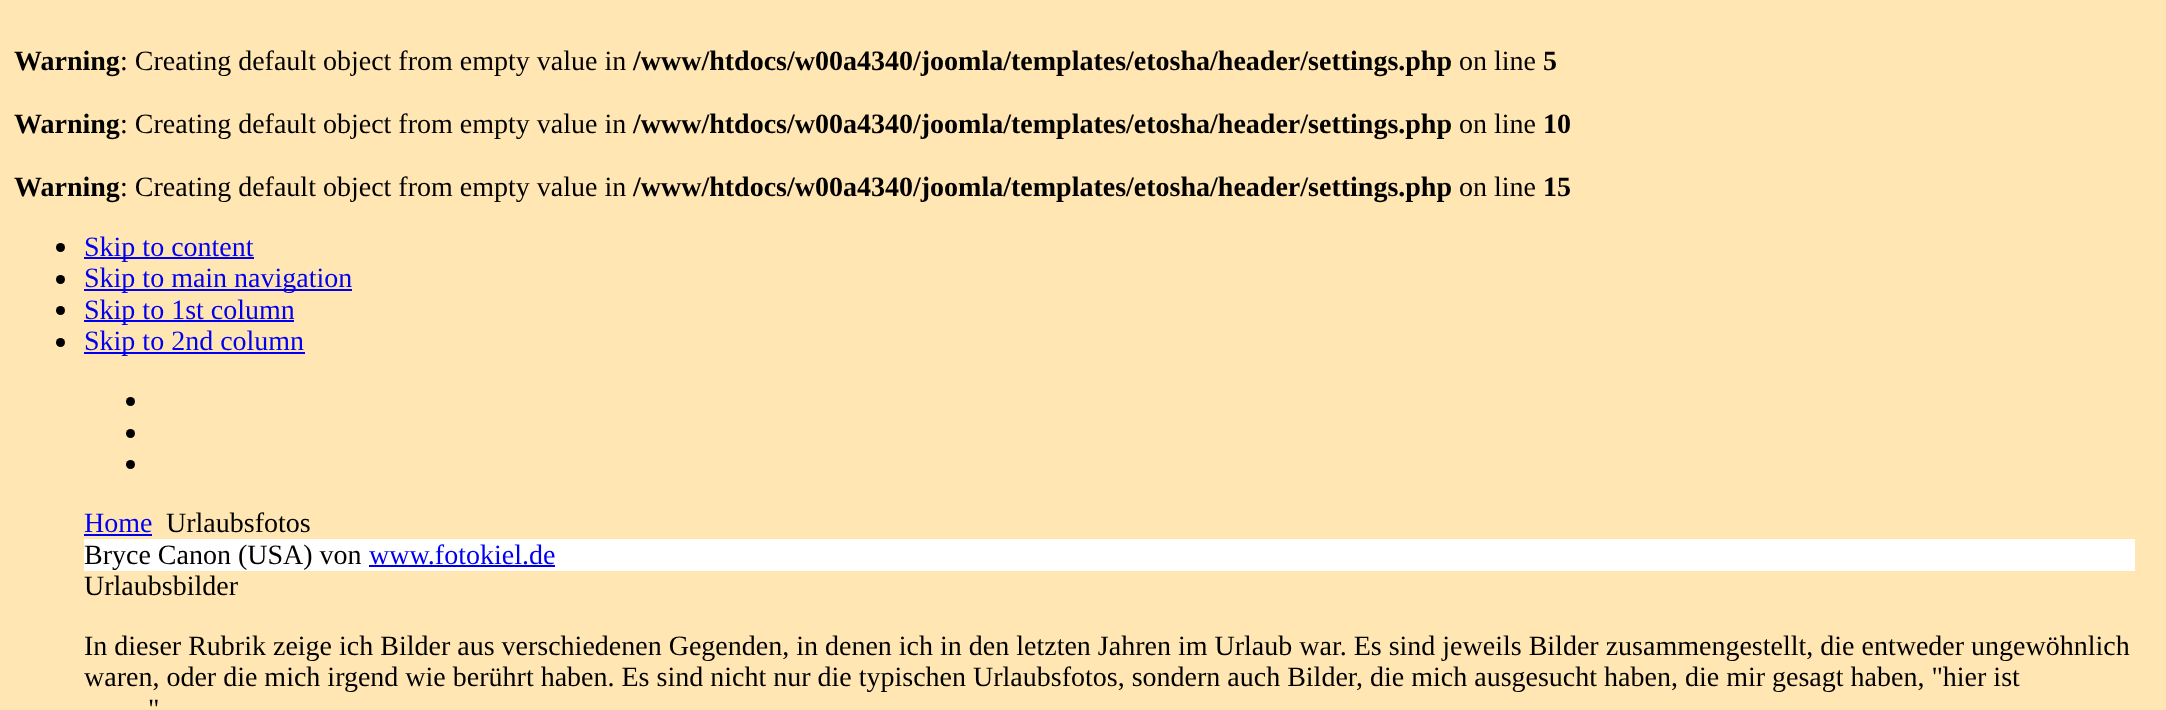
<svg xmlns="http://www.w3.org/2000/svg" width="2166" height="710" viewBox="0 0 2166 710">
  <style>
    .t1 { font: bold 28px Liberation Serif; fill: #000; }
    .t2 { font: 28px Liberation Serif; fill: #000; }
    .t3 { font: 28px Liberation Serif; fill: #00e; }
  </style>
  <rect width="100%" height="100%" fill="#ffe6b3"/>
  <text x="14" y="70" class="t1">Warning</text>
  <text x="120" y="70" class="t2">: Creating default object from empty value in</text>
  <text x="633" y="70" class="t1">/www/htdocs/w00a4340/joomla/templates/etosha/header/settings.php</text>
  <text x="1459" y="70" class="t2">on line</text>
  <text x="1543" y="70" class="t1">5</text>
  <text x="14" y="133" class="t1">Warning</text>
  <text x="120" y="133" class="t2">: Creating default object from empty value in</text>
  <text x="633" y="133" class="t1">/www/htdocs/w00a4340/joomla/templates/etosha/header/settings.php</text>
  <text x="1459" y="133" class="t2">on line</text>
  <text x="1543" y="133" class="t1">10</text>
  <text x="14" y="196" class="t1">Warning</text>
  <text x="120" y="196" class="t2">: Creating default object from empty value in</text>
  <text x="633" y="196" class="t1">/www/htdocs/w00a4340/joomla/templates/etosha/header/settings.php</text>
  <text x="1459" y="196" class="t2">on line</text>
  <text x="1543" y="196" class="t1">15</text>
  <circle cx="60.5" cy="247.5" r="4.5" fill="#000"/>
  <rect x="84" y="257" width="170" height="2" fill="#00e"/>
  <text x="84" y="256" class="t3">Skip to content</text>
  <circle cx="60.5" cy="279.5" r="4.5" fill="#000"/>
  <rect x="84" y="289" width="268" height="2" fill="#00e"/>
  <text x="84" y="287" class="t3">Skip to main navigation</text>
  <circle cx="60.5" cy="310.5" r="4.5" fill="#000"/>
  <rect x="84" y="320" width="210" height="2" fill="#00e"/>
  <text x="84" y="319" class="t3">Skip to 1st column</text>
  <circle cx="60.5" cy="342.5" r="4.5" fill="#000"/>
  <rect x="84" y="352" width="221" height="2" fill="#00e"/>
  <text x="84" y="350" class="t3">Skip to 2nd column</text>
  <circle cx="130.5" cy="401.5" r="4.5" fill="#000"/>
  <circle cx="130.5" cy="433.5" r="4.5" fill="#000"/>
  <circle cx="130.5" cy="464.5" r="4.5" fill="#000"/>
  <text x="84" y="532" class="t3">Home</text>
  <rect x="84" y="534" width="68" height="2" fill="#00e"/>
  <text x="166" y="532" class="t2">Urlaubsfotos</text>
  <rect x="84" y="539" width="2051" height="32" fill="#fff"/>
  <text x="84" y="564" class="t2">Bryce Canon (USA) von</text>
  <text x="369" y="564" class="t3">www.fotokiel.de</text>
  <rect x="369" y="565" width="186" height="2" fill="#00e"/>
  <text x="84" y="595" class="t2">Urlaubsbilder</text>
  <text x="84" y="655" class="t2">In dieser Rubrik zeige ich Bilder aus verschiedenen Gegenden, in denen ich in den letzten Jahren im Urlaub war. Es sind jeweils Bilder zusammengestellt, die entweder ungewöhnlich</text>
  <text x="84" y="686" class="t2">waren, oder die mich irgend wie berührt haben. Es sind nicht nur die typischen Urlaubsfotos, sondern auch Bilder, die mich ausgesucht haben, die mir gesagt haben, "hier ist</text>
  <text x="148" y="718" class="t2">"</text>
</svg>
